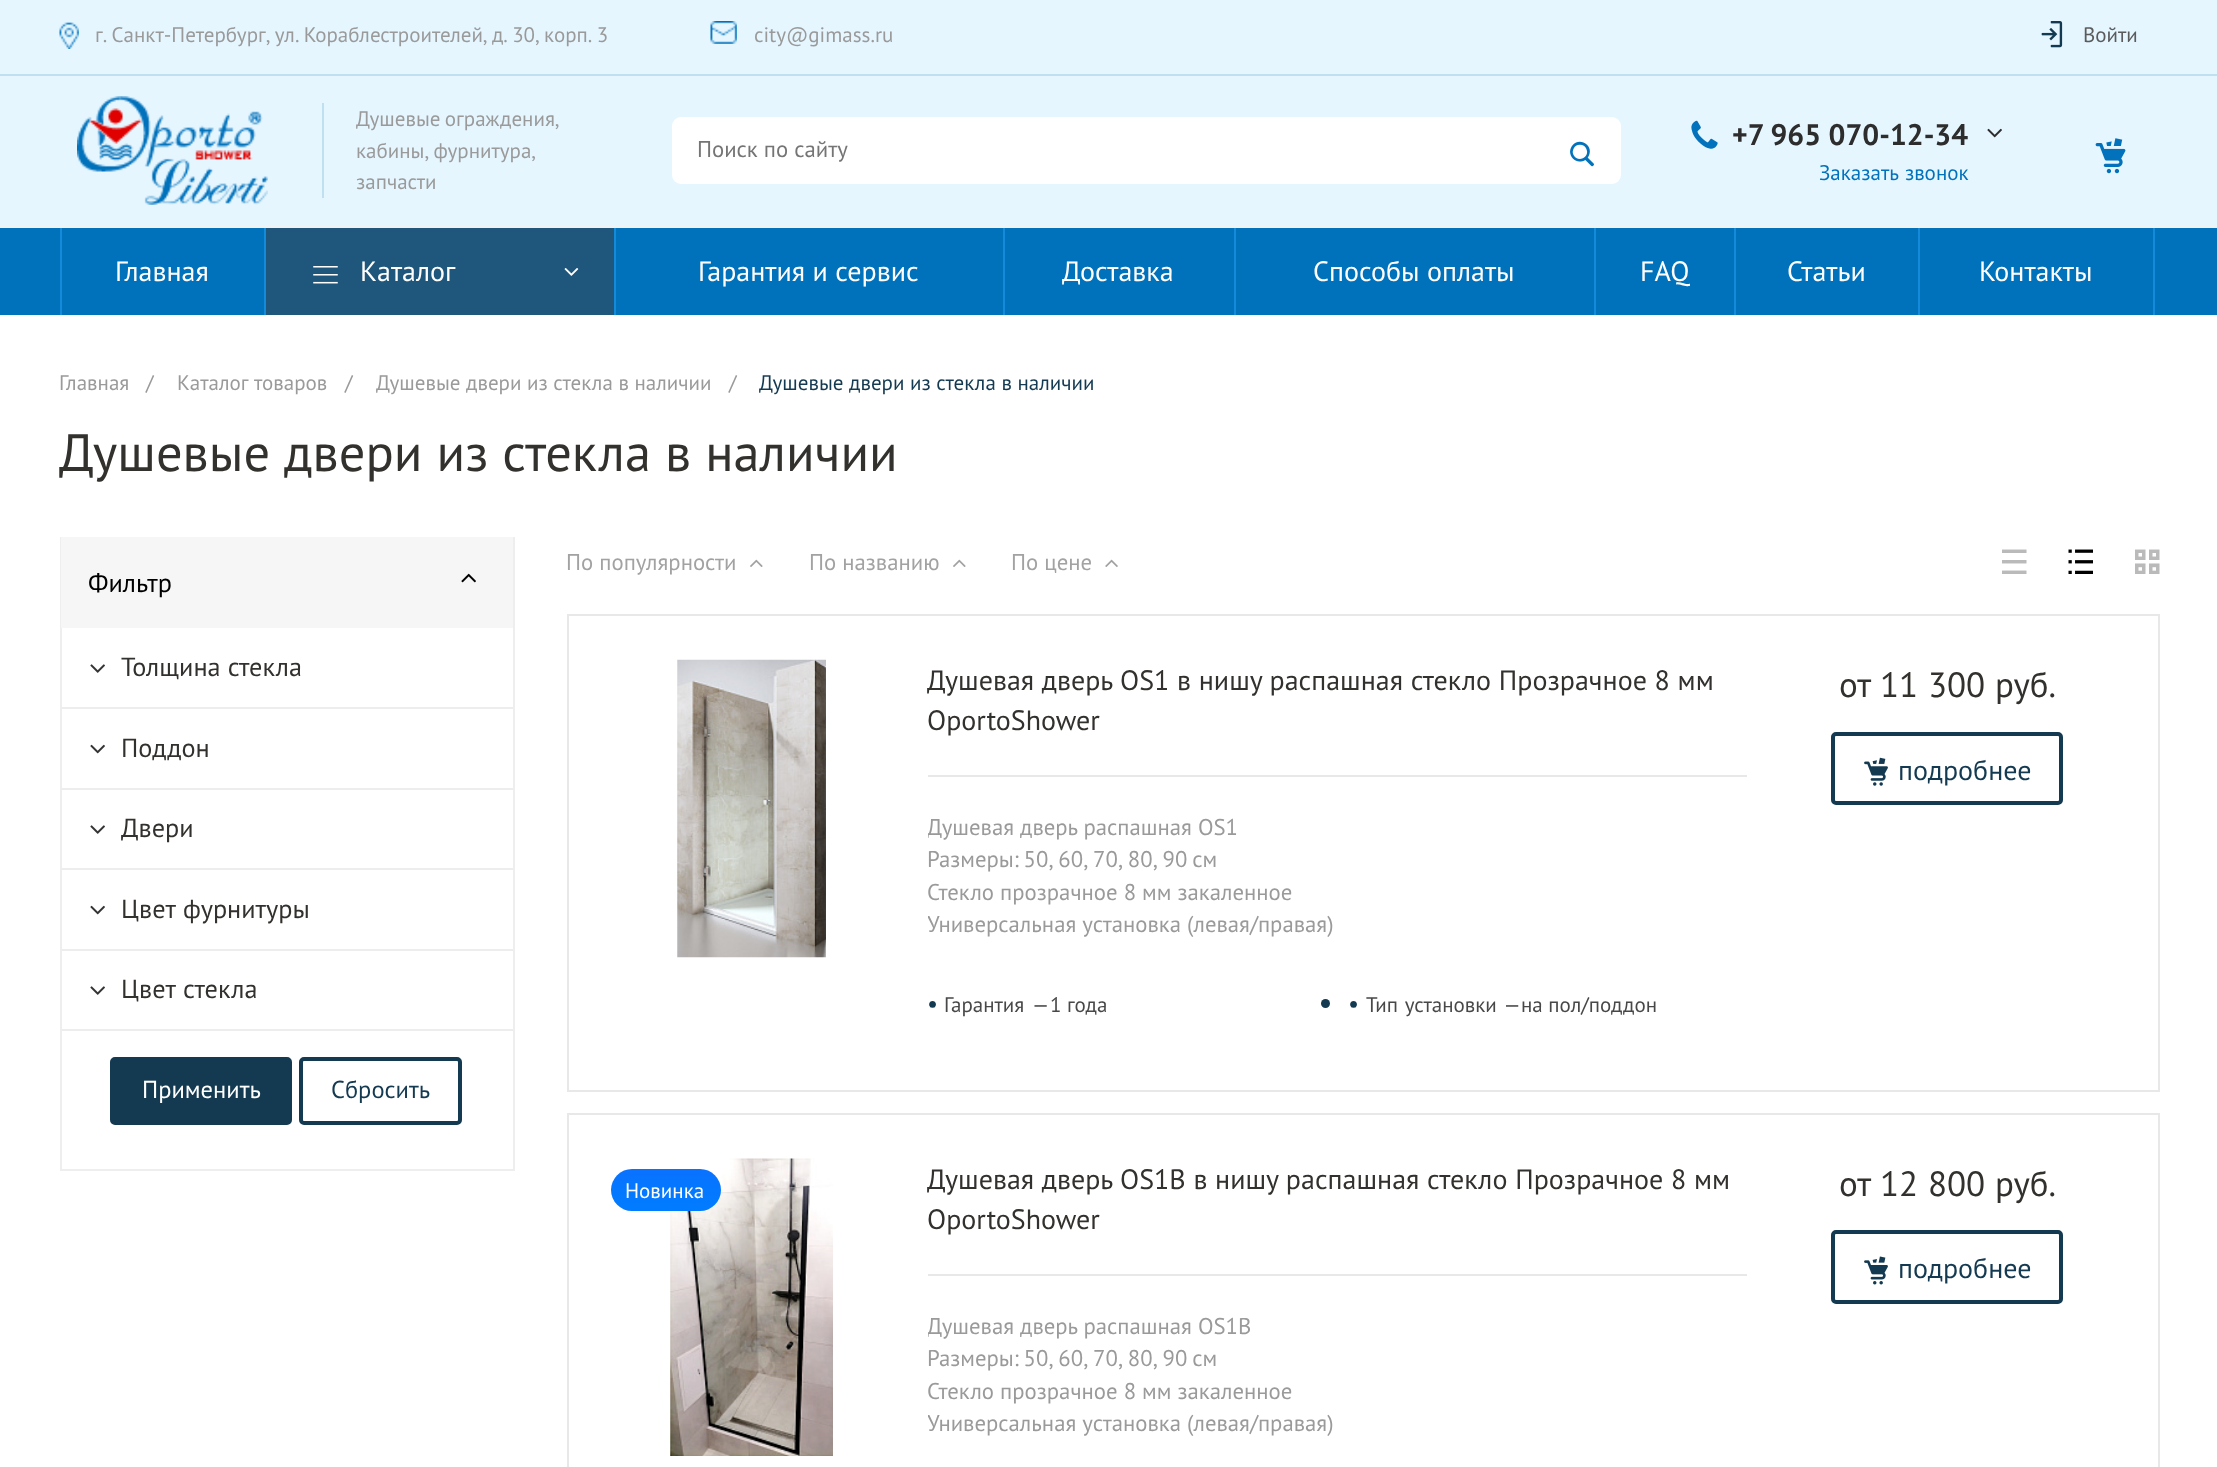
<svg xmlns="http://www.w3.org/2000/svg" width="2217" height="1467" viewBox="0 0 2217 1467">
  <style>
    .t1 { font: 21px PT Sans; fill: #9a9a9a; }
    .t2 { font: 21px PT Sans; fill: #5b5b5b; }
    .t3 { font: 22.75px PT Sans; fill: #757575; }
    .t4 { font: bold 29.75px PT Sans; fill: #2d2d2d; }
    .t5 { font: 21px PT Sans; fill: #0172bb; }
    .t6 { font: 28px PT Sans; fill: #fff; }
    .t7 { font: 21px PT Sans; fill: #143a52; }
    .t8 { font: 52.5px PT Sans; fill: #33312e; }
    .t9 { font: 26.25px PT Sans; fill: #000; }
    .t10 { font: 26.25px PT Sans; fill: #33312e; }
    .t11 { font: 24.5px PT Sans; fill: #fff; }
    .t12 { font: 24.5px PT Sans; fill: #143a52; }
    .t13 { font: 22.75px PT Sans; fill: #a2a2a2; }
    .t14 { font: 28px PT Sans; fill: #33312e; }
    .t15 { font: 22.75px PT Sans; fill: #9a9a9a; }
    .t16 { font: 21px PT Sans; fill: #484848; }
    .t17 { font: 35px PT Sans; fill: #33312e; }
    .t18 { font: 28px PT Sans; fill: #143a52; }
    .t19 { font: 21px PT Sans; fill: #fff; }
  </style>
  <defs>
    <clipPath id="clip1"><rect x="928" y="812" width="819" height="130"/></clipPath>
    <linearGradient id="g1" gradientUnits="userSpaceOnUse" x1="666" y1="1169" x2="666" y2="1211"><stop offset="0" stop-color="#0a71ff"/><stop offset="0.5" stop-color="#0478ff"/><stop offset="1" stop-color="#017cff"/></linearGradient>
    <clipPath id="clip2"><rect x="928" y="1311" width="819" height="129"/></clipPath>
  </defs>
  <rect width="100%" height="100%" fill="#fff"/>
  <rect x="0" y="0" width="2217" height="226" fill="#e5f6ff"/>
  <rect x="0" y="74" width="2217" height="2" fill="#bee0f1"/>
  <image x="59" y="22" width="20" height="27" href="images/1.png"/>
  <text x="95" y="42" word-spacing="-1.25" class="t1">г. Санкт-Петербург, ул. Кораблестроителей, д. 30, корп. 3</text>
  <image x="710" y="21" width="27" height="23" href="images/2.png"/>
  <text x="754" y="42" class="t1">city@gimass.ru</text>
  <image x="2041" y="21" width="22" height="27" href="images/3.png"/>
  <text x="2083" y="42" class="t2">Войти</text>
  <rect x="0" y="226" width="2217" height="2" fill="#f2f2f2"/>
  <image x="77" y="96" width="191" height="109" href="images/4.png"/>
  <rect x="322" y="103" width="2" height="95" fill="#bee0f1"/>
  <text x="356" y="126" word-spacing="-1.25" class="t1">Душевые ограждения,</text>
  <text x="356" y="158" word-spacing="-1.25" class="t1">кабины, фурнитура,</text>
  <text x="356" y="189" class="t1">запчасти</text>
  <rect x="672" y="117" width="949" height="67" rx="9" fill="#fff"/>
  <text x="697" y="157" class="t3">Поиск по сайту</text>
  <image x="1570" y="141" width="24" height="26" href="images/5.png"/>
  <image x="1691" y="120" width="27" height="29" href="images/6.png"/>
  <text x="1732" y="145" class="t4">+7 965 070-12-34</text>
  <image x="1987" y="128" width="15" height="10" href="images/7.png"/>
  <text x="1819" y="180" word-spacing="1" class="t5">Заказать звонок</text>
  <image x="2095" y="138" width="31" height="36" href="images/8.png"/>
  <rect x="0" y="228" width="2217" height="87" fill="#0071bb"/>
  <rect x="264" y="228" width="2" height="87" fill="#138bda"/>
  <rect x="60" y="228" width="2" height="87" fill="#138bda"/>
  <text x="115" y="281" class="t6">Главная</text>
  <rect x="266" y="228" width="348" height="87" fill="#1e577b"/>
  <rect x="614" y="228" width="2" height="87" fill="#138bda"/>
  <image x="313" y="266" width="25" height="18" href="images/9.png"/>
  <text x="360" y="281" class="t6">Каталог</text>
  <image x="564" y="268" width="15" height="8" href="images/10.png"/>
  <rect x="1003" y="228" width="2" height="87" fill="#138bda"/>
  <text x="698" y="281" class="t6">Гарантия и сервис</text>
  <rect x="1234" y="228" width="2" height="87" fill="#138bda"/>
  <text x="1062" y="281" class="t6">Доставка</text>
  <rect x="1594" y="228" width="2" height="87" fill="#138bda"/>
  <text x="1313" y="281" class="t6">Способы оплаты</text>
  <rect x="1734" y="228" width="2" height="87" fill="#138bda"/>
  <text x="1640" y="281" class="t6">FAQ</text>
  <rect x="1918" y="228" width="2" height="87" fill="#138bda"/>
  <text x="1787" y="281" class="t6">Статьи</text>
  <rect x="2153" y="228" width="2" height="87" fill="#138bda"/>
  <text x="1979" y="281" class="t6">Контакты</text>
  <text x="59" y="390" class="t1">Главная</text>
  <text x="146" y="390" class="t1">/</text>
  <text x="177" y="390" word-spacing="1" class="t1">Каталог товаров</text>
  <text x="345" y="390" class="t1">/</text>
  <text x="376" y="390" class="t1">Душевые двери из стекла в наличии</text>
  <text x="729" y="390" class="t1">/</text>
  <text x="759" y="390" class="t7">Душевые двери из стекла в наличии</text>
  <text x="59" y="471" class="t8">Душевые двери из стекла в наличии</text>
  <rect x="513" y="537" width="2" height="634" fill="#eee"/>
  <rect x="60" y="1169" width="455" height="2" fill="#eee"/>
  <rect x="60" y="537" width="2" height="634" fill="#eee"/>
  <rect x="61" y="537" width="452" height="91" fill="#f6f6f6"/>
  <text x="88" y="592" class="t9">Фильтр</text>
  <image x="461" y="573" width="15" height="10" href="images/11.png"/>
  <rect x="61" y="707" width="452" height="2" fill="#ededed"/>
  <image x="90" y="664" width="15" height="9" href="images/12.png"/>
  <text x="121" y="676" class="t10">Толщина стекла</text>
  <rect x="61" y="788" width="452" height="2" fill="#ededed"/>
  <image x="90" y="744" width="15" height="10" href="images/13.png"/>
  <text x="121" y="757" class="t10">Поддон</text>
  <rect x="61" y="868" width="452" height="2" fill="#ededed"/>
  <image x="90" y="825" width="15" height="9" href="images/12.png"/>
  <text x="121" y="837" class="t10">Двери</text>
  <rect x="61" y="949" width="452" height="2" fill="#ededed"/>
  <image x="90" y="905" width="15" height="10" href="images/13.png"/>
  <text x="121" y="918" word-spacing="1" class="t10">Цвет фурнитуры</text>
  <rect x="61" y="1029" width="452" height="2" fill="#ededed"/>
  <image x="90" y="986" width="15" height="9" href="images/12.png"/>
  <text x="121" y="998" word-spacing="1" class="t10">Цвет стекла</text>
  <rect x="112" y="1059" width="178" height="64" rx="3" fill="#143a52" stroke="#143a52" stroke-width="4"/>
  <text x="142" y="1098" class="t11">Применить</text>
  <rect x="301" y="1059" width="159" height="64" rx="3" fill="none" stroke="#143a52" stroke-width="4"/>
  <text x="331" y="1098" class="t12">Сбросить</text>
  <text x="566" y="570" class="t13">По популярности</text>
  <image x="750" y="559" width="13" height="8" href="images/14.png"/>
  <text x="809" y="570" class="t13">По названию</text>
  <image x="953" y="559" width="13" height="8" href="images/14.png"/>
  <text x="1011" y="570" class="t13">По цене</text>
  <image x="1105" y="559" width="13" height="8" href="images/15.png"/>
  <image x="2002" y="549" width="25" height="25" href="images/16.png"/>
  <image x="2068" y="549" width="25" height="25" href="images/17.png"/>
  <image x="2135" y="549" width="25" height="25" href="images/18.png"/>
  <rect x="568" y="615" width="1591" height="476" fill="none" stroke="#e8e8e8" stroke-width="2"/>
  <image x="677" y="659" width="149" height="299" href="images/19.png"/>
  <rect x="928" y="775" width="819" height="2" fill="#e8e8e8"/>
  <text x="927" y="690" word-spacing="0.25" class="t14">Душевая дверь OS1 в нишу распашная стекло Прозрачное 8 мм</text>
  <text x="927" y="730" class="t14">OportoShower</text>
  <g clip-path="url(#clip1)">
    <text x="927" y="835" class="t15">Душевая дверь распашная OS1</text>
  </g>
  <text x="927" y="867" word-spacing="-1.25" class="t15">Размеры: 50, 60, 70, 80, 90 см</text>
  <text x="927" y="900" class="t15">Стекло прозрачное 8 мм закаленное</text>
  <g clip-path="url(#clip1)">
    <text x="927" y="932" class="t15">Универсальная установка (левая/правая)</text>
  </g>
  <text x="927" y="1012" class="t12">•</text>
  <text x="944" y="1012" word-spacing="2" class="t16">Гарантия —</text>
  <text x="1050" y="1012" class="t16">1 года</text>
  <circle cx="1325.5" cy="1003.5" r="4.5" fill="#143a52"/>
  <text x="1348" y="1012" class="t12">•</text>
  <text x="1366" y="1012" word-spacing="1" class="t16">Тип установки —</text>
  <text x="1521" y="1012" class="t16">на пол/поддон</text>
  <text x="1839" y="697" word-spacing="0.5" class="t17">от 11 300 руб.</text>
  <rect x="1833" y="734" width="228" height="69" rx="3" fill="none" stroke="#143a52" stroke-width="4"/>
  <image x="1864" y="757" width="24" height="29" href="images/20.png"/>
  <text x="1898" y="780" class="t18">подробнее</text>
  <rect x="568" y="1114" width="1591" height="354" fill="none" stroke="#e8e8e8" stroke-width="2"/>
  <image x="670" y="1158" width="163" height="298" href="images/21.png"/>
  <rect x="611" y="1169" width="110" height="42" rx="21" fill="url(#g1)"/>
  <text x="625" y="1198" class="t19">Новинка</text>
  <rect x="928" y="1274" width="819" height="2" fill="#e8e8e8"/>
  <text x="927" y="1189" word-spacing="0.25" class="t14">Душевая дверь OS1B в нишу распашная стекло Прозрачное 8 мм</text>
  <text x="927" y="1229" class="t14">OportoShower</text>
  <g clip-path="url(#clip2)">
    <text x="927" y="1334" class="t15">Душевая дверь распашная OS1B</text>
  </g>
  <text x="927" y="1366" word-spacing="-1.25" class="t15">Размеры: 50, 60, 70, 80, 90 см</text>
  <text x="927" y="1399" class="t15">Стекло прозрачное 8 мм закаленное</text>
  <g clip-path="url(#clip2)">
    <text x="927" y="1431" class="t15">Универсальная установка (левая/правая)</text>
  </g>
  <text x="1839" y="1196" word-spacing="0.5" class="t17">от 12 800 руб.</text>
  <rect x="1833" y="1232" width="228" height="70" rx="3" fill="none" stroke="#143a52" stroke-width="4"/>
  <image x="1864" y="1256" width="24" height="29" href="images/22.png"/>
  <text x="1898" y="1278" class="t18">подробнее</text>
</svg>
